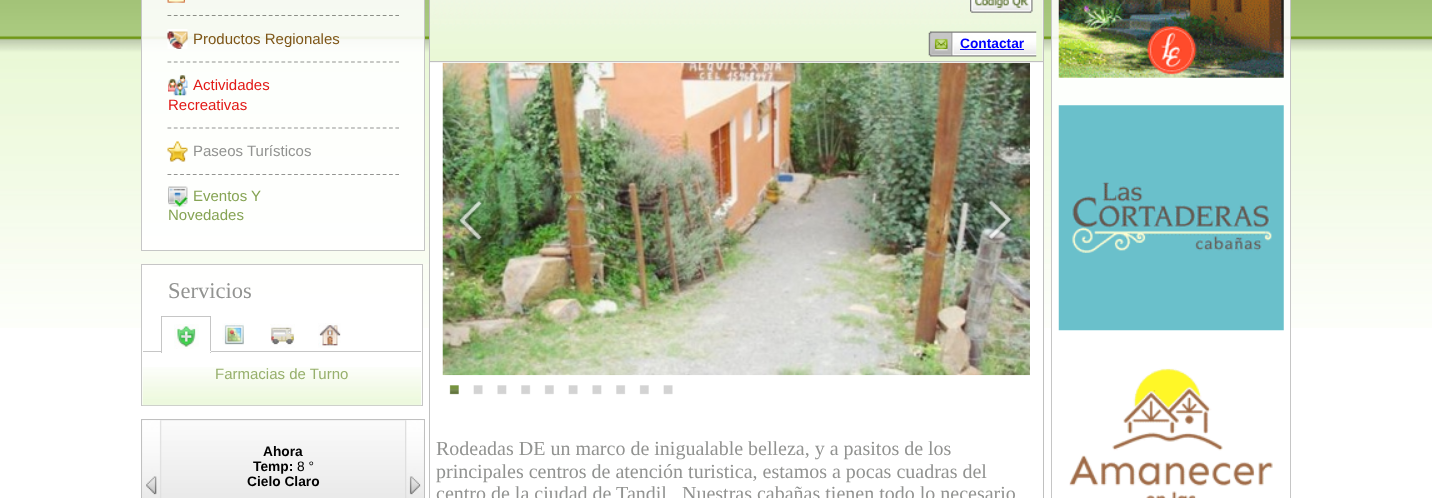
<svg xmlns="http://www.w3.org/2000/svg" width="1432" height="498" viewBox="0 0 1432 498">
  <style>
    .t1 { font: 15px Liberation Sans; fill: #7e5618; }
    .t2 { font: 15px Liberation Sans; fill: #e21916; }
    .t3 { font: 15px Liberation Sans; fill: #929391; }
    .t4 { font: 15px Liberation Sans; fill: #86a454; }
    .t5 { font: 22.5px Liberation Serif; fill: #929391; }
    .t6 { font: 15px Liberation Sans; fill: #97b06c; }
    .t7 { font: bold 13.75px Liberation Sans; fill: #000; }
    .t8 { font: 13.75px Liberation Sans; fill: #000; }
    .t9 { font: bold 13.75px Liberation Sans; fill: #00f; }
    .t10 { font: 20px Liberation Serif; fill: #929391; }
  </style>
  <rect width="100%" height="100%" fill="#fff"/>
  <image x="0" y="0" width="1432" height="328" href="images/1.png"/>
  <rect x="141" y="0" width="284" height="251" fill="#ffffffe6"/>
  <rect x="141.5" y="-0.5" width="283" height="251" fill="none" stroke="#c0c0c0e6"/>
  <path d="M167.5 15.5H399" fill="none" stroke="#8b8e87" stroke-width="1.2" stroke-dasharray="3.75 2.58"/>
  <image x="167" y="0" width="18" height="3" href="images/2.png"/>
  <path d="M167.5 62H399" fill="none" stroke="#929390" stroke-width="1.2" stroke-dasharray="3.75 2.58"/>
  <image x="167" y="29" width="21" height="20" href="images/3.png"/>
  <text x="193" y="44" class="t1">Productos Regionales</text>
  <path d="M167.5 128H399" fill="none" stroke="#929391" stroke-width="1.2" stroke-dasharray="3.75 2.58"/>
  <image x="168" y="75" width="20" height="21" href="images/4.png"/>
  <text x="193" y="90" class="t2">Actividades</text>
  <text x="168" y="110" class="t2">Recreativas</text>
  <path d="M167.5 174.5H399" fill="none" stroke="#939491" stroke-width="1.2" stroke-dasharray="3.75 2.58"/>
  <image x="167" y="141" width="21" height="21" href="images/5.png"/>
  <text x="193" y="156" class="t3">Paseos Turísticos</text>
  <image x="168" y="186" width="20" height="21" href="images/6.png"/>
  <text x="193" y="201" class="t4">Eventos Y</text>
  <text x="168" y="220" class="t4">Novedades</text>
  <rect x="142" y="265" width="280" height="63" fill="#ffffffe6"/>
  <rect x="141.5" y="264.5" width="281" height="141" fill="none" stroke="#c6c6c6"/>
  <text x="168" y="298" class="t5">Servicios</text>
  <rect x="143" y="351" width="278" height="1" fill="#c6c6c6"/>
  <rect x="161" y="351" width="50" height="1" fill="#ffffffe6"/>
  <rect x="161" y="316" width="50" height="1" fill="#c6c6c6"/>
  <rect x="210" y="316" width="1" height="37" fill="#c0c0c0e6"/>
  <rect x="161" y="351" width="50" height="1" fill="#fff"/>
  <rect x="161" y="316" width="1" height="37" fill="#c0c0c0e6"/>
  <image x="174" y="324" width="25" height="25" href="images/7.png"/>
  <image x="222" y="323" width="22" height="22" href="images/8.png"/>
  <image x="270" y="324" width="25" height="24" href="images/9.png"/>
  <image x="318" y="323" width="23" height="25" href="images/10.png"/>
  <image x="142" y="367" width="280" height="39" href="images/11.png"/>
  <text x="215" y="379" class="t6">Farmacias de Turno</text>
  <image x="142" y="420" width="282" height="78" href="images/12.png"/>
  <rect x="141.5" y="419.5" width="283" height="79" fill="none" stroke="#c0c0c0"/>
  <image x="142" y="420" width="20" height="78" href="images/13.png"/>
  <text x="263" y="456" class="t7">Ahora</text>
  <text x="253" y="471" class="t7">Temp:</text>
  <text x="297" y="471" class="t8">8 °</text>
  <text x="247" y="486" class="t7">Cielo Claro</text>
  <image x="405" y="420" width="19" height="78" href="images/14.png"/>
  <rect x="430" y="63" width="613" height="265" fill="#fff"/>
  <rect x="429.5" y="-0.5" width="614" height="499" fill="none" stroke="#c0c0c0"/>
  <rect x="430" y="0" width="613" height="63" fill="#f6f6f6"/>
  <image x="430" y="0" width="613" height="61" href="images/15.png"/>
  <rect x="430" y="61" width="613" height="1" fill="#c0c0c0"/>
  <image x="970" y="0" width="63" height="13" href="images/16.png"/>
  <image x="928" y="31" width="109" height="26" href="images/17.png"/>
  <text x="960" y="48" class="t9">Contactar</text>
  <rect x="960" y="49" width="64" height="1" fill="#00f"/>
  <image x="442" y="62" width="588" height="314" href="images/18.png"/>
  <image x="457" y="199" width="27" height="43" href="images/19.png"/>
  <image x="986" y="198" width="28" height="44" href="images/20.png"/>
  <image x="449" y="385" width="10" height="10" href="images/21.png"/>
  <image x="473" y="385" width="10" height="10" href="images/22.png"/>
  <image x="497" y="385" width="10" height="10" href="images/23.png"/>
  <image x="521" y="385" width="10" height="10" href="images/24.png"/>
  <image x="544" y="385" width="10" height="10" href="images/25.png"/>
  <image x="568" y="385" width="10" height="10" href="images/22.png"/>
  <image x="592" y="385" width="10" height="10" href="images/26.png"/>
  <image x="616" y="385" width="10" height="10" href="images/27.png"/>
  <image x="639" y="385" width="10" height="10" href="images/28.png"/>
  <image x="663" y="385" width="10" height="10" href="images/29.png"/>
  <text x="436" y="455" class="t10">Rodeadas DE un marco de inigualable belleza, y a pasitos de los</text>
  <text x="436" y="478" class="t10">principales centros de atención turistica, estamos a pocas cuadras del</text>
  <text x="436" y="500" class="t10">centro de la ciudad de Tandil</text>
  <text x="682" y="500" class="t10">Nuestras cabañas tienen todo lo necesario</text>
  <rect x="1051" y="0" width="240" height="328" fill="#ffffffe6"/>
  <rect x="1051.5" y="-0.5" width="239" height="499" fill="none" stroke="#c0c0c0e6"/>
  <image x="1058" y="0" width="226" height="78" href="images/30.png"/>
  <image x="1058" y="105" width="226" height="226" href="images/31.png"/>
  <image x="1069" y="368" width="204" height="130" href="images/32.png"/>
</svg>
